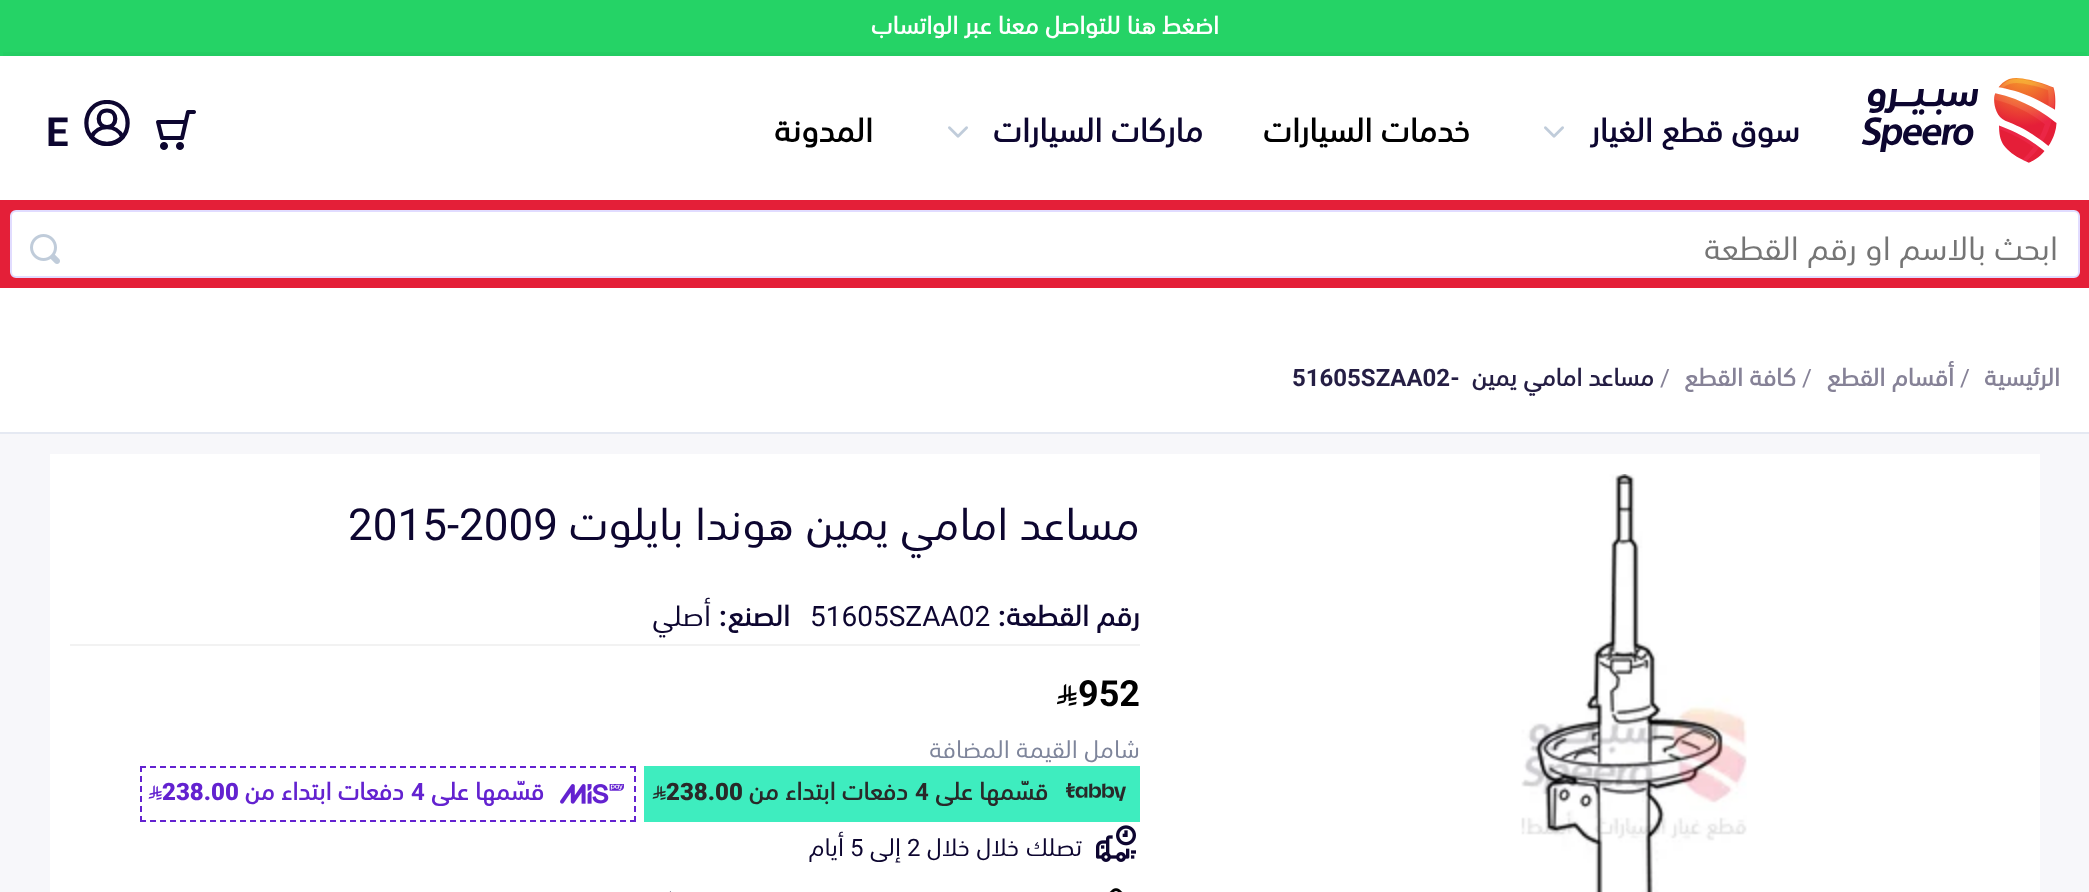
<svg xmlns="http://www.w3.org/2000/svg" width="2089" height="892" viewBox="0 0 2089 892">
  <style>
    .t1 { font: bold 24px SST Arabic; direction: rtl; fill: #fff; }
    .t2 { font: bold 32px SST Arabic; direction: rtl; fill: #0d0630; }
    .t3 { font: bold 32px SST Arabic; direction: rtl; fill: #000; }
    .t4 { font: bold 40px Roboto; fill: #0d0630; }
    .t5 { font: 32px SST Arabic; direction: rtl; fill: #757575; }
    .t6 { font: bold 24px SST Arabic; direction: rtl; fill: #868297; }
    .t7 { font: 24px Roboto; fill: #868297; }
    .t8 { font: bold 24px SST Arabic; direction: rtl; fill: #251e44; }
    .t9 { font: bold 24px Roboto; fill: #251e44; }
    .t10 { font: 44px SST Arabic; direction: rtl; fill: #0d0630; }
    .t11 { font: 44px Roboto; fill: #0d0630; }
    .t12 { font: bold 28px SST Arabic; direction: rtl; fill: #0d0630; }
    .t13 { font: bold 28px Roboto; direction: rtl; fill: #0d0630; }
    .t14 { font: 28px Roboto; fill: #0d0630; }
    .t15 { font: 28px SST Arabic; direction: rtl; fill: #0d0630; }
    .t16 { font: bold 36px Roboto; fill: #000; }
    .t17 { font: 24px SST Arabic; direction: rtl; fill: #7e859b; }
    .t18 { font: bold 24px SST Arabic; direction: rtl; fill: #292929; }
    .t19 { font: bold 24px Roboto; fill: #292929; }
    .t20 { font: 900 24px Roboto; fill: #292929; }
    .t21 { font: bold 24px SST Arabic; direction: rtl; fill: #6322d0; }
    .t22 { font: bold 24px Roboto; fill: #6322d0; }
    .t23 { font: 900 24px Roboto; fill: #6322d0; }
    .t24 { font: 24px SST Arabic; direction: rtl; fill: #0d0630; }
    .t25 { font: 24px Roboto; fill: #0d0630; }
  </style>
  <defs>
    <clipPath id="clip1"><rect x="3" y="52" width="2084" height="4"/></clipPath>
    <clipPath id="clip2"><rect x="84" y="100" width="46" height="46"/></clipPath>
  </defs>
  <rect width="100%" height="100%" fill="#fff"/>
  <rect x="0" y="0" width="2089" height="56" fill="#25d366"/>
  <g clip-path="url(#clip1)">
    <rect x="0" y="60" width="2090" height="144" fill="#0000001a" filter="blur(10px)"/>
  </g>
  <text x="1219" y="34" class="t1">اضغط هنا للتواصل معنا عبر الواتساب</text>
  <image x="1861" y="78" width="196" height="85" href="images/1.png"/>
  <text x="1800" y="142" class="t2">سوق قطع الغيار</text>
  <image x="1544" y="126" width="20" height="12" href="images/2.png"/>
  <text x="1470" y="142" class="t3">خدمات السيارات</text>
  <text x="1203" y="142" class="t2">ماركات السيارات</text>
  <image x="948" y="126" width="20" height="12" href="images/2.png"/>
  <text x="873" y="142" class="t3">المدونة</text>
  <image x="156" y="110" width="40" height="40" href="images/3.png"/>
  <g clip-path="url(#clip2)">
    <path d="M107 144C134.5 144 134.5 102 107 102C79.5 102 79.5 144 107 144Z" fill="none" stroke="#0d0630" stroke-width="4.2" stroke-linejoin="round"/>
  </g>
  <path d="M122.5 137C116.5 124 97.5 124 91.5 137C100 146 114 146 122.5 137ZM107 127C118 127 118 110.5 107 110.5C96 110.5 96 127 107 127Z" fill="none" stroke="#0d0630" stroke-width="4.2"/>
  <text x="46" y="146" class="t4">E</text>
  <rect x="0" y="200" width="2089" height="88" fill="#e41f38"/>
  <rect x="11" y="211" width="2068" height="66" rx="5" fill="#fff" stroke="#e1dcff" stroke-width="2"/>
  <text x="2058" y="260" class="t5">ابحث بالاسم او رقم القطعة</text>
  <image x="30" y="234" width="30" height="30" href="images/4.png"/>
  <rect x="0" y="432" width="2089" height="2" fill="#e5e9f2"/>
  <text x="2060" y="386" class="t6">الرئيسية</text>
  <text x="1960" y="386" class="t7">/</text>
  <text x="1954" y="386" class="t6">أقسام القطع</text>
  <text x="1802" y="386" class="t7">/</text>
  <text x="1796" y="386" class="t6">كافة القطع</text>
  <text x="1660" y="386" class="t7">/</text>
  <text x="1654" y="386" class="t8">مساعد امامي يمين</text>
  <text x="1292" y="386" class="t9">51605SZAA02-</text>
  <rect x="0" y="434" width="2089" height="458" fill="#f7f7fa"/>
  <rect x="50" y="454" width="1990" height="438" fill="#fff"/>
  <image x="1521" y="474" width="226" height="418" href="images/5.png"/>
  <text x="1140" y="540" class="t10">مساعد امامي يمين هوندا بايلوت</text>
  <text x="348" y="540" class="t11">2015-2009</text>
  <rect x="70" y="644" width="1070" height="2" fill="#f2f2f2"/>
  <text x="1140" y="626" class="t12">رقم القطعة</text>
  <text x="1006" y="626" class="t13">:</text>
  <text x="810" y="626" class="t14">51605SZAA02</text>
  <text x="790" y="626" class="t12">الصنع</text>
  <text x="727" y="626" class="t13">:</text>
  <text x="711" y="626" class="t15">أصلي</text>
  <text x="1078" y="706" class="t16">952</text>
  <image x="1057" y="683" width="20" height="23" href="images/6.png"/>
  <text x="1140" y="758" class="t17">شامل القيمة المضافة</text>
  <rect x="644" y="766" width="496" height="56" fill="#3eedbf"/>
  <image x="1066" y="783" width="60" height="18" href="images/7.png"/>
  <text x="1048" y="800" class="t18">قسّمها على</text>
  <text x="915" y="800" class="t19">4</text>
  <text x="908" y="800" class="t18">دفعات ابتداء من</text>
  <text x="666" y="800" class="t20">238.00</text>
  <image x="652" y="785" width="14" height="15" href="images/8.png"/>
  <path d="M140 767H636" fill="none" stroke="#6322d0" stroke-width="2" stroke-dasharray="6 4"/>
  <path d="M635 766V822" fill="none" stroke="#6322d0" stroke-width="2" stroke-dasharray="6 4"/>
  <path d="M140 821H636" fill="none" stroke="#6322d0" stroke-width="2" stroke-dasharray="6 4"/>
  <path d="M141 766V822" fill="none" stroke="#6322d0" stroke-width="2" stroke-dasharray="6 4"/>
  <image x="560" y="784" width="64" height="20" href="images/9.png"/>
  <text x="544" y="800" class="t21">قسّمها على</text>
  <text x="411" y="800" class="t22">4</text>
  <text x="404" y="800" class="t21">دفعات ابتداء من</text>
  <text x="162" y="800" class="t23">238.00</text>
  <image x="148" y="785" width="14" height="15" href="images/10.png"/>
  <image x="1096" y="825" width="40" height="37" href="images/11.png"/>
  <text x="1082" y="856" class="t24">تصلك خلال خلال</text>
  <text x="907" y="856" class="t25">2</text>
  <text x="901" y="856" class="t24">إلى</text>
  <text x="850" y="856" class="t25">5</text>
  <text x="844" y="856" class="t24">أيام</text>
  <image x="1109" y="888" width="14" height="4" href="images/12.png"/>
  <image x="669" y="891" width="2" height="1" href="images/13.png"/>
</svg>
